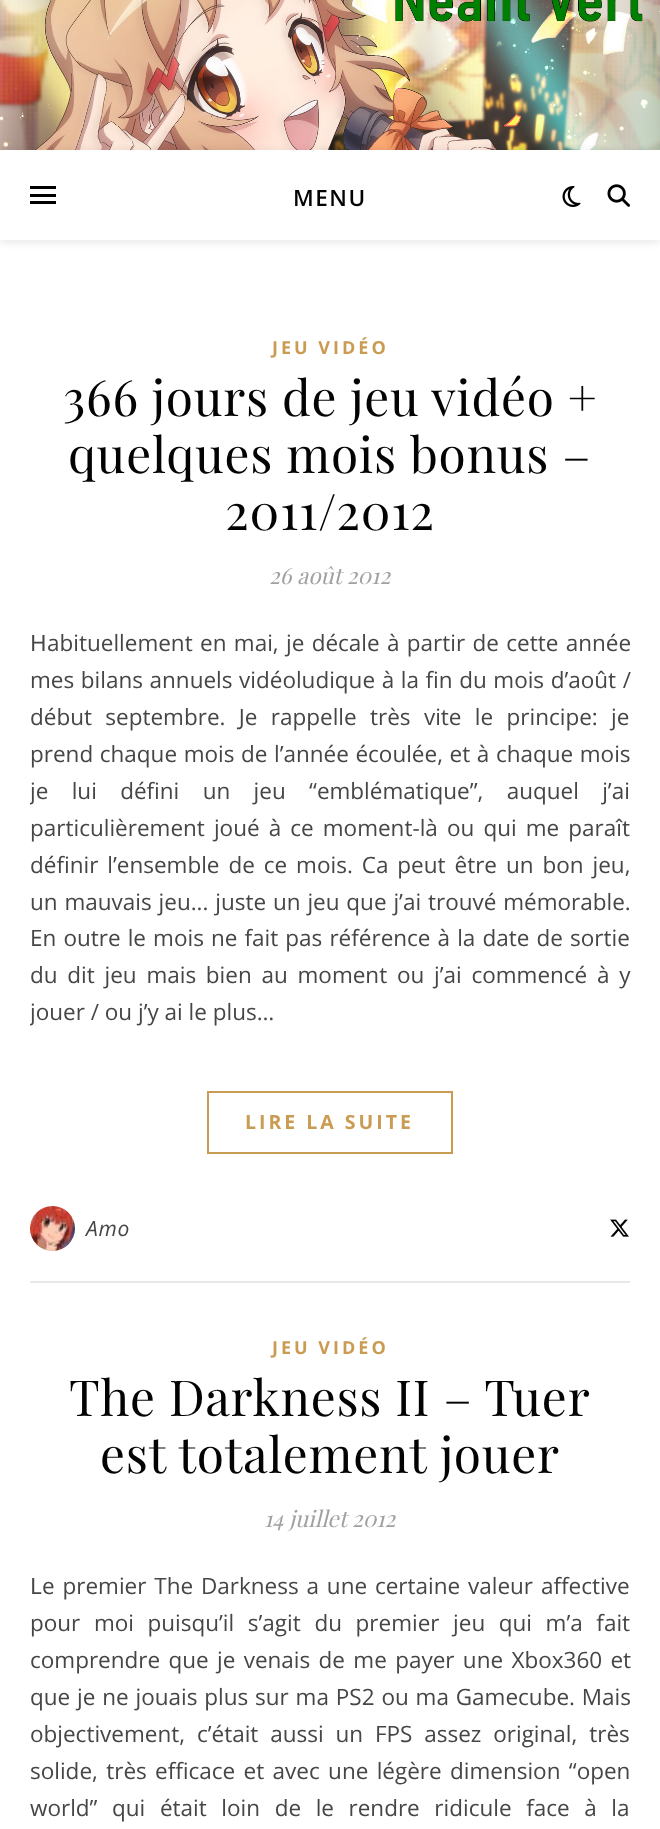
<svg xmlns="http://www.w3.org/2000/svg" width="660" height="1829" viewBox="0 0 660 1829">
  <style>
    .t1 { font: 600 22.5px Open Sans; letter-spacing: 1.5px; fill: #030303; }
    .t2 { font: bold 18px Open Sans; letter-spacing: 3px; fill: #ca9b52; }
    .t3 { font: 49.5px Playfair Display; letter-spacing: 0.75px; fill: #030303; }
    .t4 { font: italic 22.5px Playfair Display; fill: #a1a1a1; }
    .t5 { font: 22.5px Noto Sans; fill: #464646; }
    .t6 { font: 22.5px Open Sans; fill: #464646; }
    .t7 { font: bold 19.5px Open Sans; letter-spacing: 3px; fill: #ca9b52; }
    .t8 { font: italic 21px Open Sans; letter-spacing: 0.75px; fill: #464646; }
  </style>
  <defs>
    <clipPath id="clip1"><rect x="30" y="624" width="600" height="429"/></clipPath>
  </defs>
  <rect width="100%" height="100%" fill="#fff"/>
  <image x="0" y="0" width="660" height="150" href="images/1.png"/>
  <rect x="0" y="152" width="660" height="90" fill="#0000001a" filter="blur(4px)"/>
  <rect x="0" y="150" width="660" height="90" fill="#fff"/>
  <rect x="30" y="186" width="26" height="3" fill="#000"/>
  <rect x="30" y="194" width="26" height="3" fill="#000"/>
  <rect x="30" y="201" width="26" height="3" fill="#000"/>
  <text x="293" y="206" class="t1">MENU</text>
  <image x="562" y="186" width="19" height="21" href="images/2.png"/>
  <image x="607" y="184" width="23" height="23" href="images/3.png"/>
  <text x="272" y="354" class="t2">JEU VIDÉO</text>
  <text x="63" y="416" class="t3">366 jours de jeu vidéo +</text>
  <text x="68" y="473" class="t3">quelques mois bonus –</text>
  <text x="225" y="530" class="t3">2011/2012</text>
  <text x="269" y="584" class="t4">26 août 2012</text>
  <text x="30" y="651" class="t5">H</text>
  <text x="47" y="651" word-spacing="1.5" class="t6">abituellement en mai, je décale à partir de cette année</text>
  <text x="30" y="688" word-spacing="0.75" class="t6">mes bilans annuels vidéoludique à la fin du mois d’août /</text>
  <text x="30" y="725" word-spacing="7.5" class="t6">début septembre. Je rappelle très vite le principe: je</text>
  <text x="30" y="762" word-spacing="0.75" class="t6">prend chaque mois de l’année écoulée, et à chaque mois</text>
  <g clip-path="url(#clip1)">
    <text x="30" y="799" word-spacing="17.5" class="t6">je lui défini un jeu “emblématique”, auquel j’ai</text>
  </g>
  <text x="30" y="836" word-spacing="3.25" class="t6">particulièrement joué à ce moment-là ou qui me paraît</text>
  <text x="30" y="873" word-spacing="3.1" class="t6">définir l’ensemble de ce mois. Ca peut être un bon jeu,</text>
  <text x="30" y="910" word-spacing="1" class="t6">un mauvais jeu... juste un jeu que j’ai trouvé mémorable.</text>
  <text x="30" y="946" word-spacing="1.25" class="t6">En outre le mois ne fait pas référence à la date de sortie</text>
  <text x="30" y="983" word-spacing="3.9" class="t6">du dit jeu mais bien au moment ou j’ai commencé à y</text>
  <g clip-path="url(#clip1)">
    <text x="30" y="1020" class="t6">jouer / ou j’y ai le plus…</text>
  </g>
  <rect x="208" y="1092" width="244" height="61" fill="none" stroke="#ca9b52" stroke-width="2"/>
  <text x="245" y="1129" class="t7">LIRE LA SUITE</text>
  <rect x="30" y="1281" width="600" height="2" fill="#e8e8e8"/>
  <image x="30" y="1206" width="45" height="45" href="images/4.png"/>
  <text x="86" y="1236" class="t8">Amo</text>
  <image x="610" y="1219" width="19" height="18" href="images/5.png"/>
  <text x="272" y="1354" class="t2">JEU VIDÉO</text>
  <text x="69" y="1416" class="t3">The Darkness II – Tuer</text>
  <text x="100" y="1473" class="t3">est totalement jouer</text>
  <text x="264" y="1527" class="t4">14 juillet 2012</text>
  <text x="30" y="1594" class="t5">L</text>
  <text x="42" y="1594" word-spacing="2" class="t6">e premier The Darkness a une certaine valeur affective</text>
  <text x="30" y="1631" word-spacing="7.75" class="t6">pour moi puisqu’il s’agit du premier jeu qui m’a fait</text>
  <text x="30" y="1668" word-spacing="2.5" class="t6">comprendre que je venais de me payer une Xbox360 et</text>
  <text x="30" y="1705" word-spacing="1" class="t6">que je ne jouais plus sur ma PS2 ou ma Gamecube. Mais</text>
  <text x="30" y="1742" word-spacing="6" class="t6">objectivement, c’était aussi un FPS assez original, très</text>
  <text x="30" y="1779" word-spacing="2.5" class="t6">solide, très efficace et avec une légère dimension “open</text>
  <text x="30" y="1816" word-spacing="8.75" class="t6">world” qui était loin de le rendre ridicule face à la</text>
</svg>
